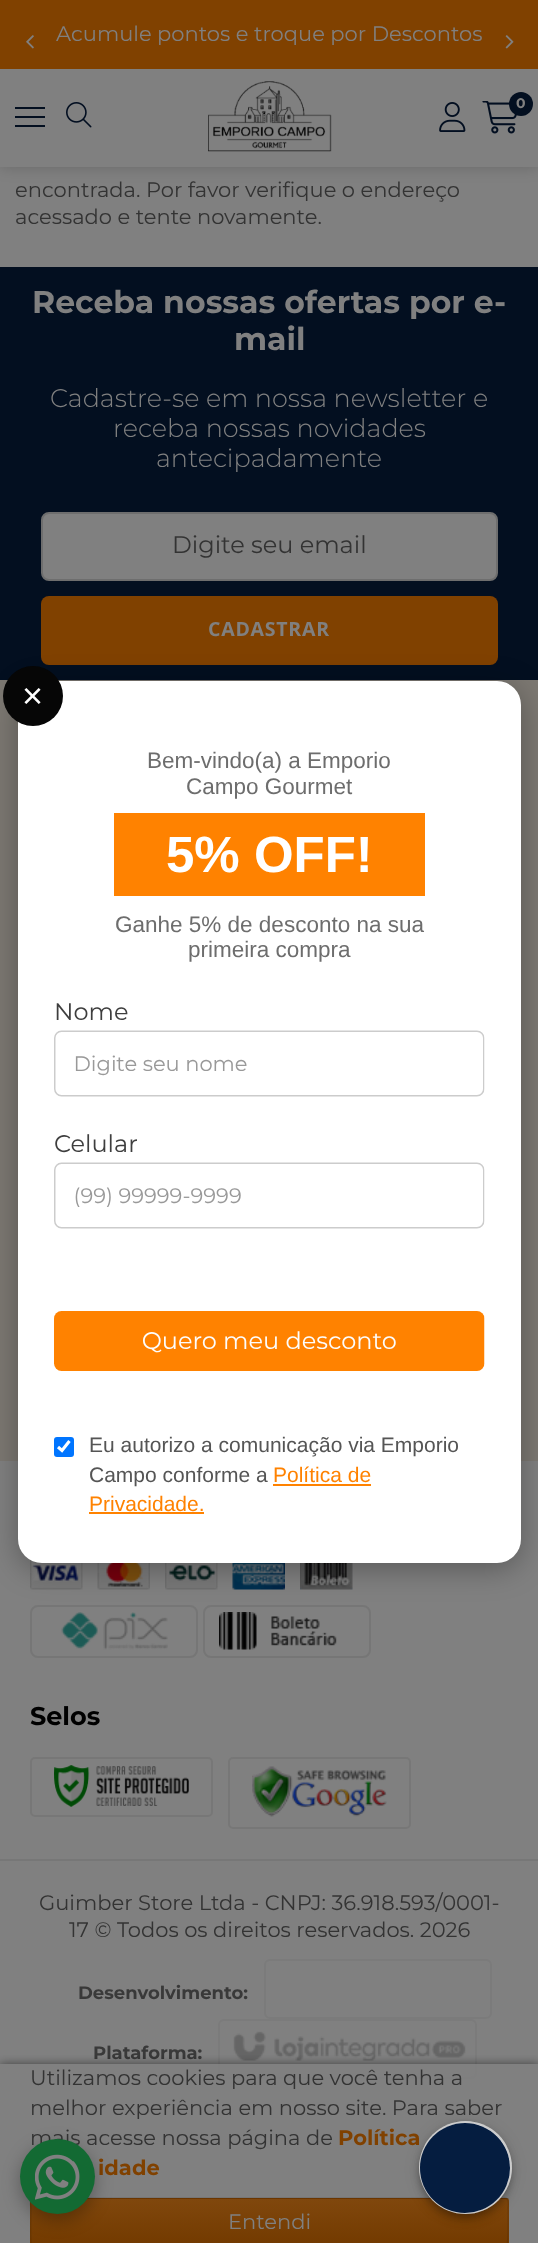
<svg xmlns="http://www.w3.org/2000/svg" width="538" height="2243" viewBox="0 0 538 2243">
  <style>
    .t1 { font: 21px Montserrat; fill: #808080; }
    .t2 { font: 21px Montserrat; fill: #333; }
    .t3 { font: bold 31.5px Montserrat; fill: #808080; }
    .t4 { font: 300 25.5px Montserrat; fill: #808080; }
    .t5 { font: 24px Montserrat; fill: #333; }
    .t6 { font: bold 19.5px Open Sans; letter-spacing: 0.75px; fill: #808080; }
    .t7 { font: bold 25.5px Montserrat; fill: #000; }
    .t8 { font: bold 18px Montserrat; fill: #393939; }
    .t9 { font: bold 21px Montserrat; fill: #804100; }
    .t10 { font: bold 14px Montserrat; fill: #808080; }
    .t11 { font: 36px Liberation Sans; fill: #fff; }
    .t12 { font: 22.5px Liberation Sans; fill: #6d6d6d; }
    .t13 { font: bold 51px Liberation Sans; fill: #fff; }
    .t14 { font: 21px Liberation Sans; fill: #555; }
    .t15 { font: 21px Liberation Sans; fill: #ff8200; }
  </style>
  <defs>
    <clipPath id="clip1"><rect x="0" y="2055" width="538" height="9"/></clipPath>
    <linearGradient id="g1" gradientUnits="userSpaceOnUse" x1="269" y1="2154" x2="269" y2="2199"><stop offset="0" stop-color="#808080" stop-opacity="0.1"/><stop offset="1" stop-color="#000" stop-opacity="0.1"/></linearGradient>
    <linearGradient id="g2" gradientUnits="userSpaceOnUse" x1="269" y1="2199" x2="269" y2="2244"><stop offset="0" stop-color="#808080" stop-opacity="0.1"/><stop offset="1" stop-color="#000" stop-opacity="0.1"/></linearGradient>
  </defs>
  <rect width="100%" height="100%" fill="#808080"/>
  <rect x="0" y="66" width="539" height="101" fill="#00000030" filter="blur(7.5px)"/>
  <rect x="0" y="0" width="538" height="69" fill="#804100"/>
  <text x="56" y="41" class="t1">Acumule pontos e troque por Descontos</text>
  <image x="26" y="35" width="8" height="14" href="images/1.png"/>
  <image x="505" y="35" width="9" height="14" href="images/2.png"/>
  <text x="15" y="197" class="t2">encontrada. Por favor verifique o endereço</text>
  <text x="15" y="224" class="t2">acessado e tente novamente.</text>
  <rect x="0" y="267" width="538" height="413" fill="#030f20"/>
  <text x="32" y="313" class="t3">Receba nossas ofertas por e-</text>
  <text x="234" y="350" class="t3">mail</text>
  <text x="50" y="407" class="t4">Cadastre-se em nossa newsletter e</text>
  <text x="113" y="437" class="t4">receba nossas novidades</text>
  <text x="156" y="467" class="t4">antecipadamente</text>
  <rect x="42" y="513" width="455" height="67" rx="7" fill="#808080" stroke="#6e6e6e" stroke-width="2"/>
  <text x="172" y="553" class="t5">Digite seu email</text>
  <rect x="41" y="596" width="457" height="69" rx="8" fill="#804100"/>
  <text x="208" y="636" class="t6">CADASTRAR</text>
  <rect x="0" y="680" width="538" height="781" fill="#7c7872"/>
  <image x="30" y="1559" width="53" height="31" href="images/3.png"/>
  <image x="97" y="1563" width="53" height="27" href="images/4.png"/>
  <image x="165" y="1563" width="53" height="27" href="images/5.png"/>
  <image x="232" y="1563" width="53" height="27" href="images/6.png"/>
  <image x="300" y="1563" width="53" height="27" href="images/7.png"/>
  <rect x="31" y="1606" width="166" height="51" rx="7" fill="none" stroke="#767676" stroke-width="2"/>
  <image x="61" y="1612" width="107" height="38" href="images/8.png"/>
  <rect x="204" y="1606" width="166" height="51" rx="7" fill="none" stroke="#767676" stroke-width="2"/>
  <image x="219" y="1612" width="118" height="38" href="images/9.png"/>
  <text x="30" y="1725" class="t7">Selos</text>
  <rect x="31" y="1758" width="181" height="58" rx="4" fill="none" stroke="#777" stroke-width="2"/>
  <image x="54" y="1765" width="135" height="42" href="images/10.png"/>
  <rect x="229" y="1758" width="181" height="70" rx="4" fill="none" stroke="#777" stroke-width="2"/>
  <image x="252" y="1766" width="135" height="51" href="images/11.png"/>
  <rect x="0" y="1859" width="538" height="2" fill="#777"/>
  <text x="39" y="1910" class="t2">Guimber Store Ltda - CNPJ: 36.918.593/0001-</text>
  <text x="69" y="1937" class="t2">17 © Todos os direitos reservados. 2026</text>
  <text x="78" y="1999" class="t8">Desenvolvimento:</text>
  <rect x="265" y="1960" width="226" height="58" rx="5" fill="none" stroke="#7b7b7b" stroke-width="2"/>
  <text x="93" y="2059" class="t8">Plataforma:</text>
  <rect x="219" y="2020" width="257" height="58" rx="5" fill="none" stroke="#7b7b7b" stroke-width="2"/>
  <image x="233" y="2031" width="233" height="30" href="images/12.png"/>
  <g clip-path="url(#clip1)">
    <rect x="0" y="2064" width="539" height="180" fill="#00000080" filter="blur(5px)"/>
  </g>
  <rect x="218" y="2064" width="259" height="15" fill="#808080f2"/>
  <text x="30" y="2085" class="t2">Utilizamos cookies para que você tenha a</text>
  <text x="30" y="2115" class="t2">melhor experiência em nosso site. Para saber</text>
  <text x="30" y="2145" class="t2">mais acesse nossa página de</text>
  <text x="338" y="2145" class="t9">Política</text>
  <text x="98" y="2175" class="t9">idade</text>
  <rect x="30" y="2198" width="479" height="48" rx="3" fill="#804100"/>
  <rect x="87" y="2198" width="422" height="1" fill="url(#g1)"/>
  <rect x="30" y="2199" width="479" height="44" fill="url(#g2)"/>
  <path d="M31.5 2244C30 2242.5 31 2212 31 2207.5C31 2207 29 2198.5 33 2198H505.5C509.5 2198.5 508 2207 508 2207.5C508 2212 508.5 2242.5 507 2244" fill="none" stroke="#0000001a" stroke-width="1.5"/>
  <text x="228" y="2229" class="t1">Entendi</text>
  <rect x="0" y="69" width="538" height="98" fill="#808080"/>
  <rect x="15" y="107" width="30" height="2" fill="#030f20"/>
  <rect x="15" y="116" width="30" height="2" fill="#030f20"/>
  <rect x="15" y="125" width="30" height="2" fill="#030f20"/>
  <image x="66" y="102" width="26" height="26" href="images/13.png"/>
  <image x="208" y="81" width="124" height="71" href="images/14.png"/>
  <image x="439" y="102" width="27" height="30" href="images/15.png"/>
  <image x="482" y="101" width="35" height="33" href="images/16.png"/>
  <circle cx="521" cy="104" r="12" fill="#030f20"/>
  <text x="516" y="108" class="t10">0</text>
  <rect x="18" y="687" width="503" height="882" rx="24" fill="#0000004d" filter="blur(15px)"/>
  <rect x="18" y="681" width="503" height="882" rx="24" fill="#fff"/>
  <circle cx="33" cy="696" r="30" fill="#060606"/>
  <text x="22" y="708" class="t11">×</text>
  <text x="147" y="768" class="t12">Bem-vindo(a) a Emporio</text>
  <text x="186" y="794" class="t12">Campo Gourmet</text>
  <rect x="114" y="813" width="311" height="83" fill="#ff8200"/>
  <text x="166" y="872" class="t13">5% OFF!</text>
  <text x="115" y="932" class="t12">Ganhe 5% de desconto na sua</text>
  <text x="188" y="957" class="t12">primeira compra</text>
  <image x="54" y="1003" width="431" height="368" href="images/17.png"/>
  <rect x="54" y="1437" width="20" height="20" rx="3" fill="#0075ff"/>
  <path d="M58 1447L62 1450.5L69.5 1441" fill="none" stroke="#fff" stroke-width="3.1"/>
  <text x="89" y="1452" class="t14">Eu autorizo a comunicação via Emporio</text>
  <text x="89" y="1482" class="t14">Campo conforme a</text>
  <text x="273" y="1482" class="t15">Política de</text>
  <rect x="273" y="1484" width="98" height="2" fill="#ff8200"/>
  <text x="89" y="1511" class="t15">Privacidade.</text>
  <rect x="89" y="1512" width="115" height="2" fill="#ff8200"/>
  <rect x="20" y="2145" width="75" height="75" rx="37.5" fill="#0000004d" filter="blur(9px)"/>
  <circle cx="57.5" cy="2176.5" r="37.5" fill="#136a33"/>
  <image x="35" y="2154" width="45" height="46" href="images/18.png"/>
  <rect x="419" y="2123" width="93" height="93" rx="46.5" fill="#0000001f" filter="blur(7.5px)"/>
  <rect x="419" y="2127" width="93" height="93" rx="46.5" fill="#00000024" filter="blur(4px)"/>
  <rect x="420" y="2126" width="90" height="90" rx="45" fill="#00000033" filter="blur(3px)"/>
  <circle cx="465.5" cy="2167.5" r="46.5" fill="#fff"/>
  <circle cx="465.5" cy="2167.5" r="45.5" fill="none" stroke="#00000033" stroke-width="2"/>
  <circle cx="465" cy="2168" r="45" fill="#051d40"/>
</svg>
